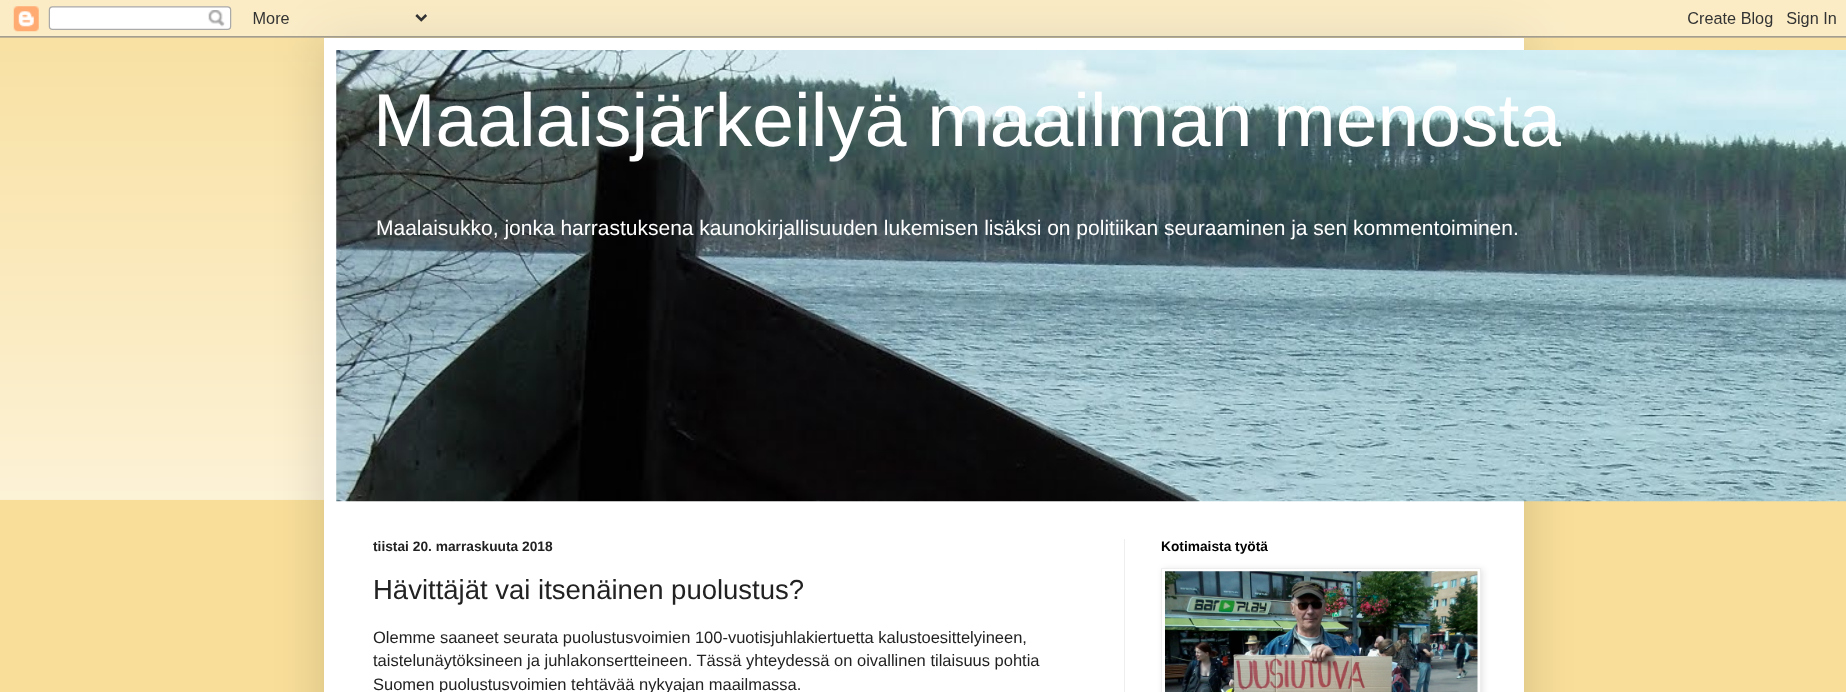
<svg xmlns="http://www.w3.org/2000/svg" width="1846" height="692" viewBox="0 0 1846 692">
  <style>
    .t1 { font: 75px Liberation Sans; fill: #fff; }
    .t2 { font: 21px Liberation Sans; fill: #fff; }
    .t3 { font: bold 13.75px Liberation Sans; fill: #222; }
    .t4 { font: 27.5px Liberation Sans; fill: #222; }
    .t5 { font: 16.5px Liberation Sans; fill: #222; }
    .t6 { font: bold 13.75px Liberation Sans; fill: #000; }
  </style>
  <rect width="100%" height="100%" fill="#f8de99"/>
  <image x="0" y="0" width="1846" height="500" href="images/1.png"/>
  <rect x="324" y="38" width="1200" height="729" fill="#00000026" filter="blur(25px)"/>
  <image x="0" y="0" width="1846" height="38" href="images/2.png"/>
  <rect x="324" y="38" width="1200" height="654" fill="#fff"/>
  <image x="336" y="50" width="1" height="159" href="images/3.png"/>
  <image x="336" y="50" width="1510" height="452" href="images/4.png"/>
  <text x="373" y="146" class="t1">Maalaisjärkeilyä maailman menosta</text>
  <text x="376" y="235" class="t2">Maalaisukko, jonka harrastuksena kaunokirjallisuuden lukemisen lisäksi on politiikan seuraaminen ja sen kommentoiminen.</text>
  <rect x="1124" y="539" width="1" height="153" fill="#eee"/>
  <text x="373" y="551" class="t3">tiistai 20. marraskuuta 2018</text>
  <text x="373" y="599" class="t4">Hävittäjät vai itsenäinen puolustus?</text>
  <text x="373" y="643" class="t5">Olemme saaneet seurata puolustusvoimien 100-vuotisjuhlakiertuetta kalustoesittelyineen,</text>
  <text x="373" y="666" class="t5">taistelunäytöksineen ja juhlakonsertteineen. Tässä yhteydessä on oivallinen tilaisuus pohtia</text>
  <text x="373" y="690" class="t5">Suomen puolustusvoimien tehtävää nykyajan maailmassa.</text>
  <text x="1161" y="551" class="t6">Kotimaista työtä</text>
  <rect x="1163" y="569" width="320" height="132" fill="#0000001a" filter="blur(3px)"/>
  <rect x="1161.5" y="568.5" width="319" height="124" fill="#fff" stroke="#eee"/>
  <image x="1165" y="571" width="313" height="121" href="images/5.png"/>
</svg>
